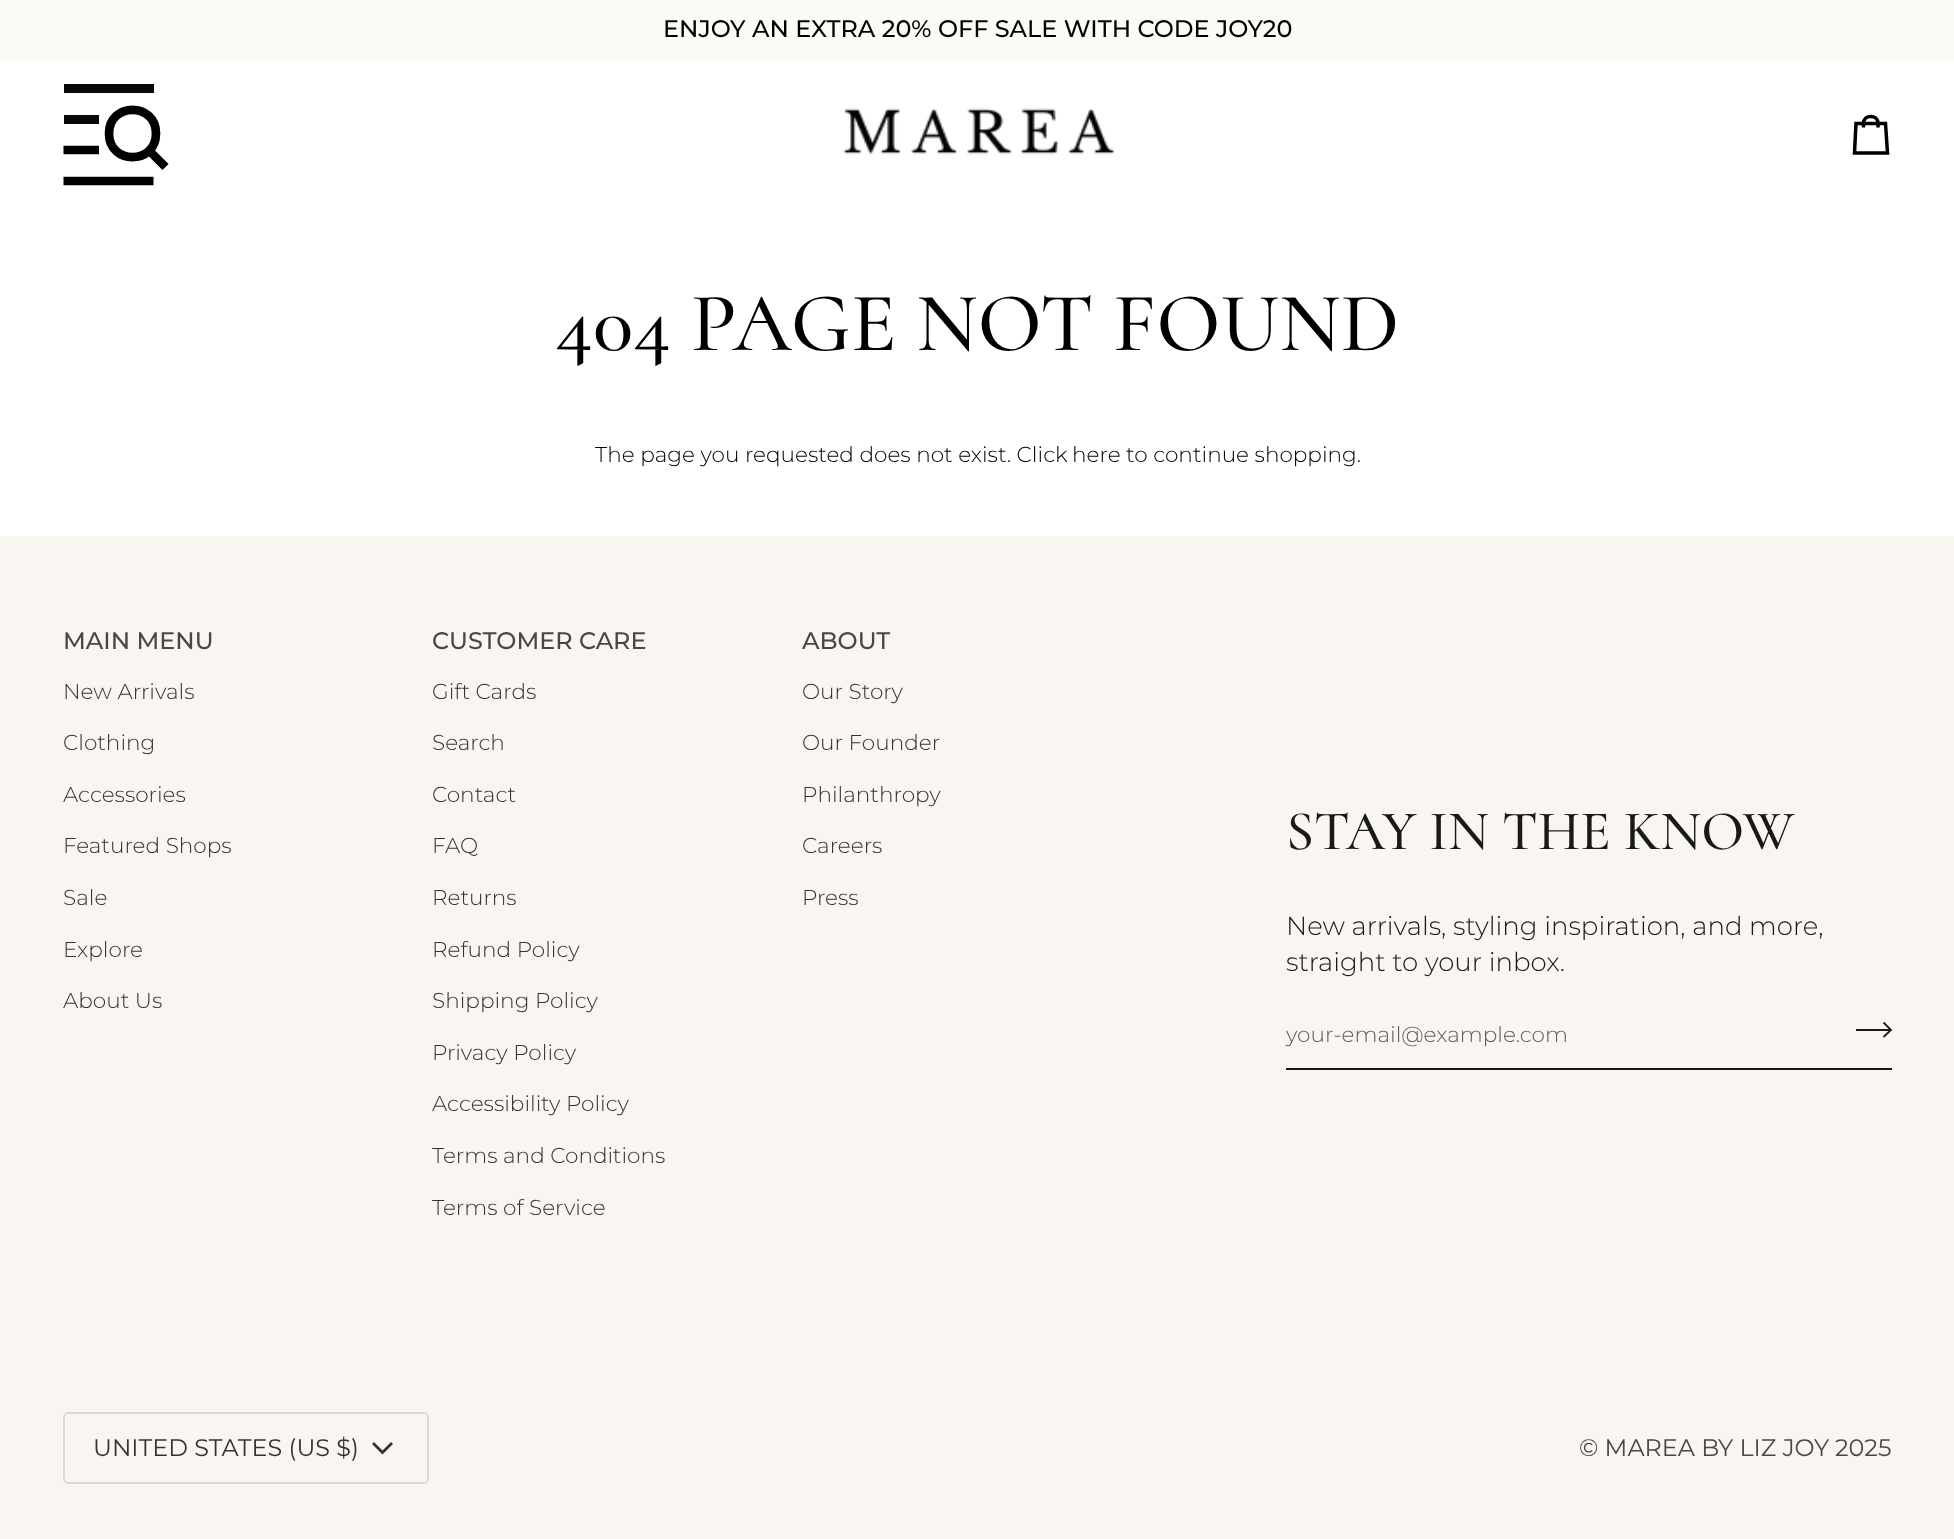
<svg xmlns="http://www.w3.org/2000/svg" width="1954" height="1539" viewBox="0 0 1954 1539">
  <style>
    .t1 { font: 500 23.9px Montserrat; fill: #000; }
    .t2 { font: 500 84px Cormorant; fill: #000; }
    .t3 { font: 300 21.6px Montserrat; fill: #000; }
    .t4 { font: 500 23.9px Montserrat; fill: #474746; }
    .t5 { font: 300 21.6px Montserrat; fill: #333; }
    .t6 { font: 500 56px Cormorant; fill: #191918; }
    .t7 { font: 300 26px Montserrat; fill: #191918; }
    .t8 { font: 300 21.6px Montserrat; fill: #5c5b5a; }
    .t9 { font: 23.9px Montserrat; fill: #333; }
    .t10 { font: 23.9px Montserrat; fill: #474746; }
  </style>
  <rect width="100%" height="100%" fill="#fff"/>
  <rect x="0" y="0" width="1954" height="60" fill="#fcfaf7"/>
  <text x="663" y="37" class="t1">ENJOY AN EXTRA 20% OFF SALE WITH CODE JOY20</text>
  <path d="M63.5 150H99" fill="none" stroke="#000" stroke-width="8.7"/>
  <rect x="64" y="115" width="35" height="9" fill="#090909"/>
  <rect x="64" y="84" width="90" height="9" fill="#090909"/>
  <path d="M63.5 181H153.5" fill="none" stroke="#000" stroke-width="8.7"/>
  <path d="M149 150.5L165.5 167M156 133.5C156 165 109 165 109 133.5C109 102 156 102 156 133.5Z" fill="none" stroke="#000" stroke-width="8.7" stroke-linejoin="round"/>
  <image x="843" y="108" width="272" height="47" href="images/1.png"/>
  <path d="M1878 127.5V123.5H1885.5L1887.5 153H1854.5L1856 123.5H1863.5C1863.5 114 1878 114 1878 123.5H1863.5V127.5" fill="none" stroke="#000" stroke-width="3.5"/>
  <text x="555" y="350" class="t2">404 PAGE NOT FOUND</text>
  <text x="595" y="462" class="t3">The page you requested does not exist. Click</text>
  <text x="1072" y="462" class="t3">here to continue shopping.</text>
  <rect x="0" y="536" width="1954" height="1003" fill="#f9f6f2"/>
  <text x="63" y="649" class="t4">MAIN MENU</text>
  <text x="63" y="699" class="t5">New Arrivals</text>
  <text x="63" y="750" class="t5">Clothing</text>
  <text x="63" y="802" class="t5">Accessories</text>
  <text x="63" y="853" class="t5">Featured Shops</text>
  <text x="63" y="905" class="t5">Sale</text>
  <text x="63" y="957" class="t5">Explore</text>
  <text x="63" y="1008" class="t5">About Us</text>
  <text x="432" y="649" class="t4">CUSTOMER CARE</text>
  <text x="432" y="699" class="t5">Gift Cards</text>
  <text x="432" y="750" class="t5">Search</text>
  <text x="432" y="802" class="t5">Contact</text>
  <text x="432" y="853" class="t5">FAQ</text>
  <text x="432" y="905" class="t5">Returns</text>
  <text x="432" y="957" class="t5">Refund Policy</text>
  <text x="432" y="1008" class="t5">Shipping Policy</text>
  <text x="432" y="1060" class="t5">Privacy Policy</text>
  <text x="432" y="1111" class="t5">Accessibility Policy</text>
  <text x="432" y="1163" class="t5">Terms and Conditions</text>
  <text x="432" y="1215" class="t5">Terms of Service</text>
  <text x="802" y="649" class="t4">ABOUT</text>
  <text x="802" y="699" class="t5">Our Story</text>
  <text x="802" y="750" class="t5">Our Founder</text>
  <text x="802" y="802" class="t5">Philanthropy</text>
  <text x="802" y="853" class="t5">Careers</text>
  <text x="802" y="905" class="t5">Press</text>
  <text x="1286" y="849" class="t6">STAY IN THE KNOW</text>
  <text x="1286" y="935" class="t7">New arrivals, styling inspiration, and more,</text>
  <text x="1286" y="971" class="t7">straight to your inbox.</text>
  <rect x="1286" y="1068" width="606" height="2" fill="#191918"/>
  <text x="1286" y="1042" class="t8">your-email@example.com</text>
  <path d="M1883.5 1022.5L1891 1030L1883.5 1037M1856 1030H1891" fill="none" stroke="#191918" stroke-width="1.8"/>
  <rect x="64" y="1413" width="364" height="70" rx="4" fill="none" stroke="#dbd9d5" stroke-width="2"/>
  <text x="93" y="1456" class="t9">UNITED STATES (US $)</text>
  <path d="M374 1444L382.5 1452.5L391 1444" fill="none" stroke="#333" stroke-width="2.8" stroke-linecap="square"/>
  <text x="1579" y="1456" class="t10">© MAREA BY LIZ JOY</text>
  <text x="1835" y="1456" class="t10">2025</text>
</svg>
